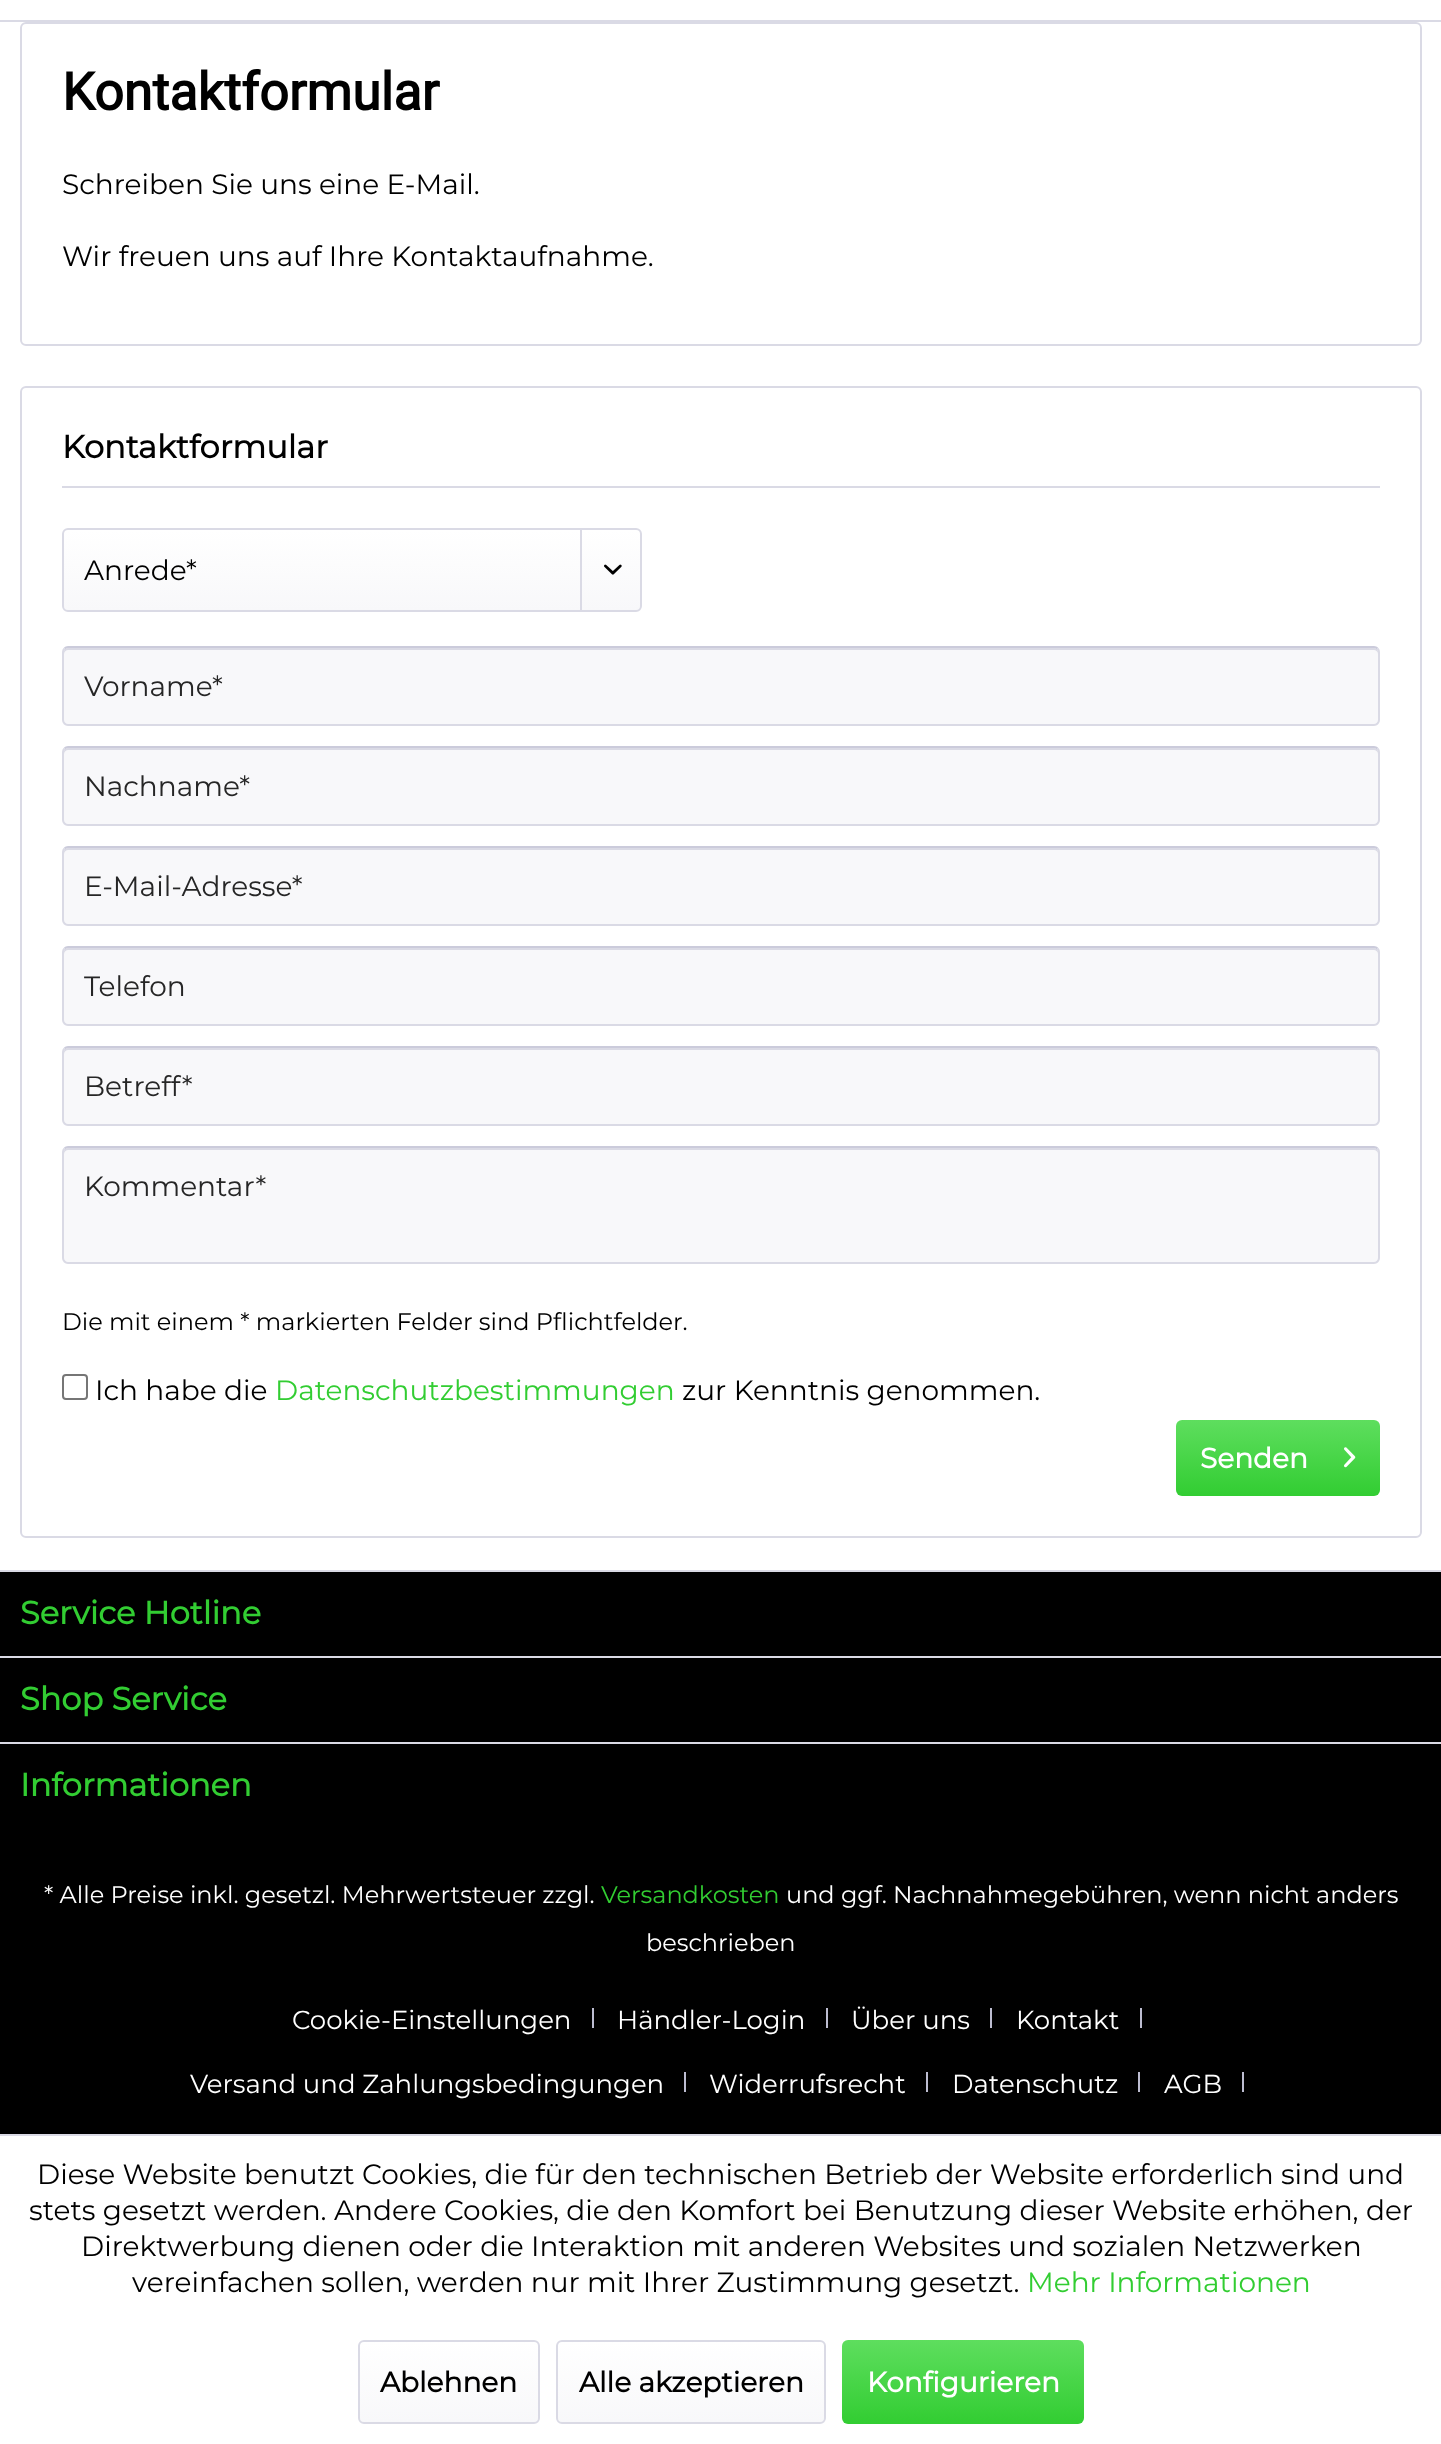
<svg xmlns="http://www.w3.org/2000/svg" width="1441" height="2444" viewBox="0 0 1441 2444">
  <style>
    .t1 { font: bold 52px Roboto; fill: #000; }
    .t2 { font: 100 28px Montserrat; fill: #000; }
    .t3 { font: bold 32px Montserrat; fill: #000; }
    .t4 { font: 100 28px Montserrat; fill: #262626; }
    .t5 { font: 100 24px Montserrat; fill: #000; }
    .t6 { font: 100 28px Montserrat; fill: #32cd32; }
    .t7 { font: bold 28px Montserrat; fill: #fff; }
    .t8 { font: bold 32px Montserrat; fill: #32cd32; }
    .t9 { font: 100 24px Montserrat; fill: #fff; }
    .t10 { font: 100 24px Montserrat; fill: #32cd32; }
    .t11 { font: 100 26px Montserrat; fill: #fff; }
    .t12 { font: bold 28px Montserrat; fill: #000; }
  </style>
  <defs>
    <linearGradient id="g1" gradientUnits="userSpaceOnUse" x1="352" y1="530" x2="352" y2="610"><stop offset="0" stop-color="#fff"/><stop offset="1" stop-color="#f8f8fa"/></linearGradient>
    <linearGradient id="g2" gradientUnits="userSpaceOnUse" x1="1278" y1="1420" x2="1278" y2="1496"><stop offset="0" stop-color="#5ede5e"/><stop offset="1" stop-color="#32cd32"/></linearGradient>
    <linearGradient id="g3" gradientUnits="userSpaceOnUse" x1="449" y1="2342" x2="449" y2="2422"><stop offset="0" stop-color="#fff"/><stop offset="1" stop-color="#f8f8fa"/></linearGradient>
    <linearGradient id="g4" gradientUnits="userSpaceOnUse" x1="691" y1="2342" x2="691" y2="2422"><stop offset="0" stop-color="#fff"/><stop offset="1" stop-color="#f8f8fa"/></linearGradient>
    <linearGradient id="g5" gradientUnits="userSpaceOnUse" x1="963" y1="2340" x2="963" y2="2424"><stop offset="0" stop-color="#5ede5e"/><stop offset="1" stop-color="#32cd32"/></linearGradient>
  </defs>
  <rect width="100%" height="100%" fill="#fff"/>
  <rect x="0" y="20" width="1441" height="2" fill="#dadae5"/>
  <rect x="21" y="23" width="1400" height="322" rx="5" fill="none" stroke="#dadae5" stroke-width="2"/>
  <text x="62" y="110" class="t1">Kontaktformular</text>
  <text x="62" y="194" class="t2">Schreiben Sie uns eine E-Mail.</text>
  <text x="62" y="266" class="t2">Wir freuen uns auf Ihre Kontaktaufnahme.</text>
  <rect x="21" y="387" width="1400" height="1150" rx="5" fill="none" stroke="#dadae5" stroke-width="2"/>
  <rect x="62" y="486" width="1318" height="2" fill="#dadae5"/>
  <text x="62" y="458" class="t3">Kontaktformular</text>
  <rect x="64" y="530" width="576" height="80" rx="4" fill="url(#g1)"/>
  <rect x="63" y="529" width="578" height="82" rx="5" fill="none" stroke="#dadae5" stroke-width="2"/>
  <text x="84" y="580" class="t2">Anrede*</text>
  <rect x="580" y="530" width="2" height="80" fill="#dadae5"/>
  <image x="604" y="564" width="18" height="11" href="images/1.png"/>
  <rect x="62" y="646" width="1318" height="80" rx="6" fill="#f8f8fa"/>
  <path d="M68 650H1374C1376 650 1378 652 1378 654C1378 651 1378 648 1374 648H68C64 648 64 651 64 654C64 652 66 650 68 650Z" fill="#dadae5"/>
  <path d="M64.5 648.5C65.5 647.5 66.5 647 68 647H1374C1375.5 647 1376.5 647.5 1377.5 648.5" fill="none" stroke="#cbcbdb" stroke-width="2"/>
  <path d="M1377.5 648.5C1378.5 649.5 1379 650.5 1379 652V720C1379 721.5 1378.5 722.5 1377.5 723.5C1376.5 724.5 1375.5 725 1374 725H68C66.5 725 65.5 724.5 64.5 723.5C63.5 722.5 63 721.5 63 720V652C63 650.5 63.5 649.5 64.5 648.5" fill="none" stroke="#dadae5" stroke-width="2"/>
  <text x="84" y="696" class="t4">Vorname*</text>
  <rect x="62" y="746" width="1318" height="80" rx="6" fill="#f8f8fa"/>
  <path d="M68 750H1374C1376 750 1378 752 1378 754C1378 751 1378 748 1374 748H68C64 748 64 751 64 754C64 752 66 750 68 750Z" fill="#dadae5"/>
  <path d="M64.5 748.5C65.5 747.5 66.5 747 68 747H1374C1375.5 747 1376.5 747.5 1377.5 748.5" fill="none" stroke="#cbcbdb" stroke-width="2"/>
  <path d="M1377.5 748.5C1378.5 749.5 1379 750.5 1379 752V820C1379 821.5 1378.5 822.5 1377.5 823.5C1376.5 824.5 1375.5 825 1374 825H68C66.5 825 65.5 824.5 64.5 823.5C63.5 822.5 63 821.5 63 820V752C63 750.5 63.5 749.5 64.5 748.5" fill="none" stroke="#dadae5" stroke-width="2"/>
  <text x="84" y="796" class="t4">Nachname*</text>
  <rect x="62" y="846" width="1318" height="80" rx="6" fill="#f8f8fa"/>
  <path d="M68 850H1374C1376 850 1378 852 1378 854C1378 851 1378 848 1374 848H68C64 848 64 851 64 854C64 852 66 850 68 850Z" fill="#dadae5"/>
  <path d="M64.5 848.5C65.5 847.5 66.5 847 68 847H1374C1375.5 847 1376.5 847.5 1377.5 848.5" fill="none" stroke="#cbcbdb" stroke-width="2"/>
  <path d="M1377.5 848.5C1378.5 849.5 1379 850.5 1379 852V920C1379 921.5 1378.5 922.5 1377.5 923.5C1376.5 924.5 1375.5 925 1374 925H68C66.5 925 65.5 924.5 64.5 923.5C63.5 922.5 63 921.5 63 920V852C63 850.5 63.5 849.5 64.5 848.5" fill="none" stroke="#dadae5" stroke-width="2"/>
  <text x="84" y="896" class="t4">E-Mail-Adresse*</text>
  <rect x="62" y="946" width="1318" height="80" rx="6" fill="#f8f8fa"/>
  <path d="M68 950H1374C1376 950 1378 952 1378 954C1378 951 1378 948 1374 948H68C64 948 64 951 64 954C64 952 66 950 68 950Z" fill="#dadae5"/>
  <path d="M64.5 948.5C65.5 947.5 66.5 947 68 947H1374C1375.5 947 1376.5 947.5 1377.5 948.5" fill="none" stroke="#cbcbdb" stroke-width="2"/>
  <path d="M1377.5 948.5C1378.5 949.5 1379 950.5 1379 952V1020C1379 1021.5 1378.5 1022.5 1377.5 1023.5C1376.5 1024.5 1375.5 1025 1374 1025H68C66.5 1025 65.5 1024.5 64.5 1023.5C63.5 1022.5 63 1021.5 63 1020V952C63 950.5 63.5 949.5 64.5 948.5" fill="none" stroke="#dadae5" stroke-width="2"/>
  <text x="84" y="996" class="t4">Telefon</text>
  <rect x="62" y="1046" width="1318" height="80" rx="6" fill="#f8f8fa"/>
  <path d="M68 1050H1374C1376 1050 1378 1052 1378 1054C1378 1051 1378 1048 1374 1048H68C64 1048 64 1051 64 1054C64 1052 66 1050 68 1050Z" fill="#dadae5"/>
  <path d="M64.5 1048.5C65.5 1047.5 66.5 1047 68 1047H1374C1375.5 1047 1376.5 1047.5 1377.5 1048.5" fill="none" stroke="#cbcbdb" stroke-width="2"/>
  <path d="M1377.5 1048.5C1378.5 1049.5 1379 1050.5 1379 1052V1120C1379 1121.5 1378.5 1122.5 1377.5 1123.5C1376.5 1124.5 1375.5 1125 1374 1125H68C66.5 1125 65.5 1124.5 64.5 1123.5C63.5 1122.5 63 1121.5 63 1120V1052C63 1050.5 63.5 1049.5 64.5 1048.5" fill="none" stroke="#dadae5" stroke-width="2"/>
  <text x="84" y="1096" class="t4">Betreff*</text>
  <rect x="62" y="1146" width="1318" height="118" rx="6" fill="#f8f8fa"/>
  <path d="M68 1150H1374C1376 1150 1378 1152 1378 1154C1378 1151 1378 1148 1374 1148H68C64 1148 64 1151 64 1154C64 1152 66 1150 68 1150Z" fill="#dadae5"/>
  <path d="M64.5 1148.5C65.5 1147.5 66.5 1147 68 1147H1374C1375.5 1147 1376.5 1147.5 1377.5 1148.5" fill="none" stroke="#cbcbdb" stroke-width="2"/>
  <path d="M1377.5 1148.5C1378.5 1149.5 1379 1150.5 1379 1152V1258C1379 1259.5 1378.5 1260.5 1377.5 1261.5C1376.5 1262.5 1375.5 1263 1374 1263H68C66.5 1263 65.5 1262.5 64.5 1261.5C63.5 1260.5 63 1259.5 63 1258V1152C63 1150.5 63.5 1149.5 64.5 1148.5" fill="none" stroke="#dadae5" stroke-width="2"/>
  <text x="84" y="1196" class="t4">Kommentar*</text>
  <text x="62" y="1330" class="t5">Die mit einem * markierten Felder sind Pflichtfelder.</text>
  <rect x="63" y="1375" width="24" height="24" rx="3" fill="none" stroke="#767676" stroke-width="2"/>
  <text x="95" y="1400" class="t2">Ich habe die</text>
  <text x="275" y="1400" class="t6">Datenschutzbestimmungen</text>
  <text x="682" y="1400" class="t2">zur Kenntnis genommen.</text>
  <rect x="1176" y="1420" width="204" height="76" rx="6" fill="url(#g2)"/>
  <text x="1200" y="1468" class="t7">Senden</text>
  <image x="1344" y="1447" width="12" height="21" href="images/2.png"/>
  <rect x="0" y="1572" width="1441" height="562" fill="#000"/>
  <rect x="0" y="1570" width="1441" height="2" fill="#dadae5"/>
  <text x="20" y="1624" class="t8">Service Hotline</text>
  <rect x="0" y="1656" width="1441" height="2" fill="#dadae5"/>
  <text x="20" y="1710" class="t8">Shop Service</text>
  <rect x="0" y="1742" width="1441" height="2" fill="#dadae5"/>
  <text x="20" y="1796" class="t8">Informationen</text>
  <text x="44" y="1903" class="t9">* Alle Preise inkl. gesetzl. Mehrwertsteuer zzgl.</text>
  <text x="601" y="1903" class="t10">Versandkosten</text>
  <text x="786" y="1903" class="t9">und ggf. Nachnahmegebühren, wenn nicht anders</text>
  <text x="646" y="1951" class="t9">beschrieben</text>
  <text x="292" y="2029" class="t11">Cookie-Einstellungen</text>
  <rect x="592" y="2008" width="2" height="20" fill="#bcbcd0"/>
  <text x="617" y="2029" class="t11">Händler-Login</text>
  <rect x="826" y="2008" width="2" height="20" fill="#bcbcd0"/>
  <text x="851" y="2029" class="t11">Über uns</text>
  <rect x="990" y="2008" width="2" height="20" fill="#bcbcd0"/>
  <text x="1016" y="2029" class="t11">Kontakt</text>
  <rect x="1140" y="2008" width="2" height="20" fill="#bcbcd0"/>
  <text x="190" y="2093" class="t11">Versand und Zahlungsbedingungen</text>
  <rect x="684" y="2072" width="2" height="20" fill="#bcbcd0"/>
  <text x="709" y="2093" class="t11">Widerrufsrecht</text>
  <rect x="926" y="2072" width="2" height="20" fill="#bcbcd0"/>
  <text x="952" y="2093" class="t11">Datenschutz</text>
  <rect x="1138" y="2072" width="2" height="20" fill="#bcbcd0"/>
  <text x="1164" y="2093" class="t11">AGB</text>
  <rect x="1242" y="2072" width="2" height="20" fill="#bcbcd0"/>
  <rect x="0" y="2134" width="1441" height="2" fill="#dadae5"/>
  <text x="37" y="2184" class="t2">Diese Website benutzt Cookies, die für den technischen Betrieb der Website erforderlich sind und</text>
  <text x="29" y="2220" class="t2">stets gesetzt werden. Andere Cookies, die den Komfort bei Benutzung dieser Website erhöhen, der</text>
  <text x="81" y="2256" class="t2">Direktwerbung dienen oder die Interaktion mit anderen Websites und sozialen Netzwerken</text>
  <text x="132" y="2292" class="t2">vereinfachen sollen, werden nur mit Ihrer Zustimmung gesetzt.</text>
  <text x="1027" y="2292" class="t6">Mehr Informationen</text>
  <rect x="360" y="2342" width="178" height="80" rx="4" fill="url(#g3)"/>
  <rect x="359" y="2341" width="180" height="82" rx="5" fill="none" stroke="#dadae5" stroke-width="2"/>
  <text x="380" y="2392" class="t12">Ablehnen</text>
  <rect x="558" y="2342" width="266" height="80" rx="4" fill="url(#g4)"/>
  <rect x="557" y="2341" width="268" height="82" rx="5" fill="none" stroke="#dadae5" stroke-width="2"/>
  <text x="579" y="2392" class="t12">Alle akzeptieren</text>
  <rect x="842" y="2340" width="242" height="84" rx="6" fill="url(#g5)"/>
  <text x="867" y="2392" class="t7">Konfigurieren</text>
</svg>
